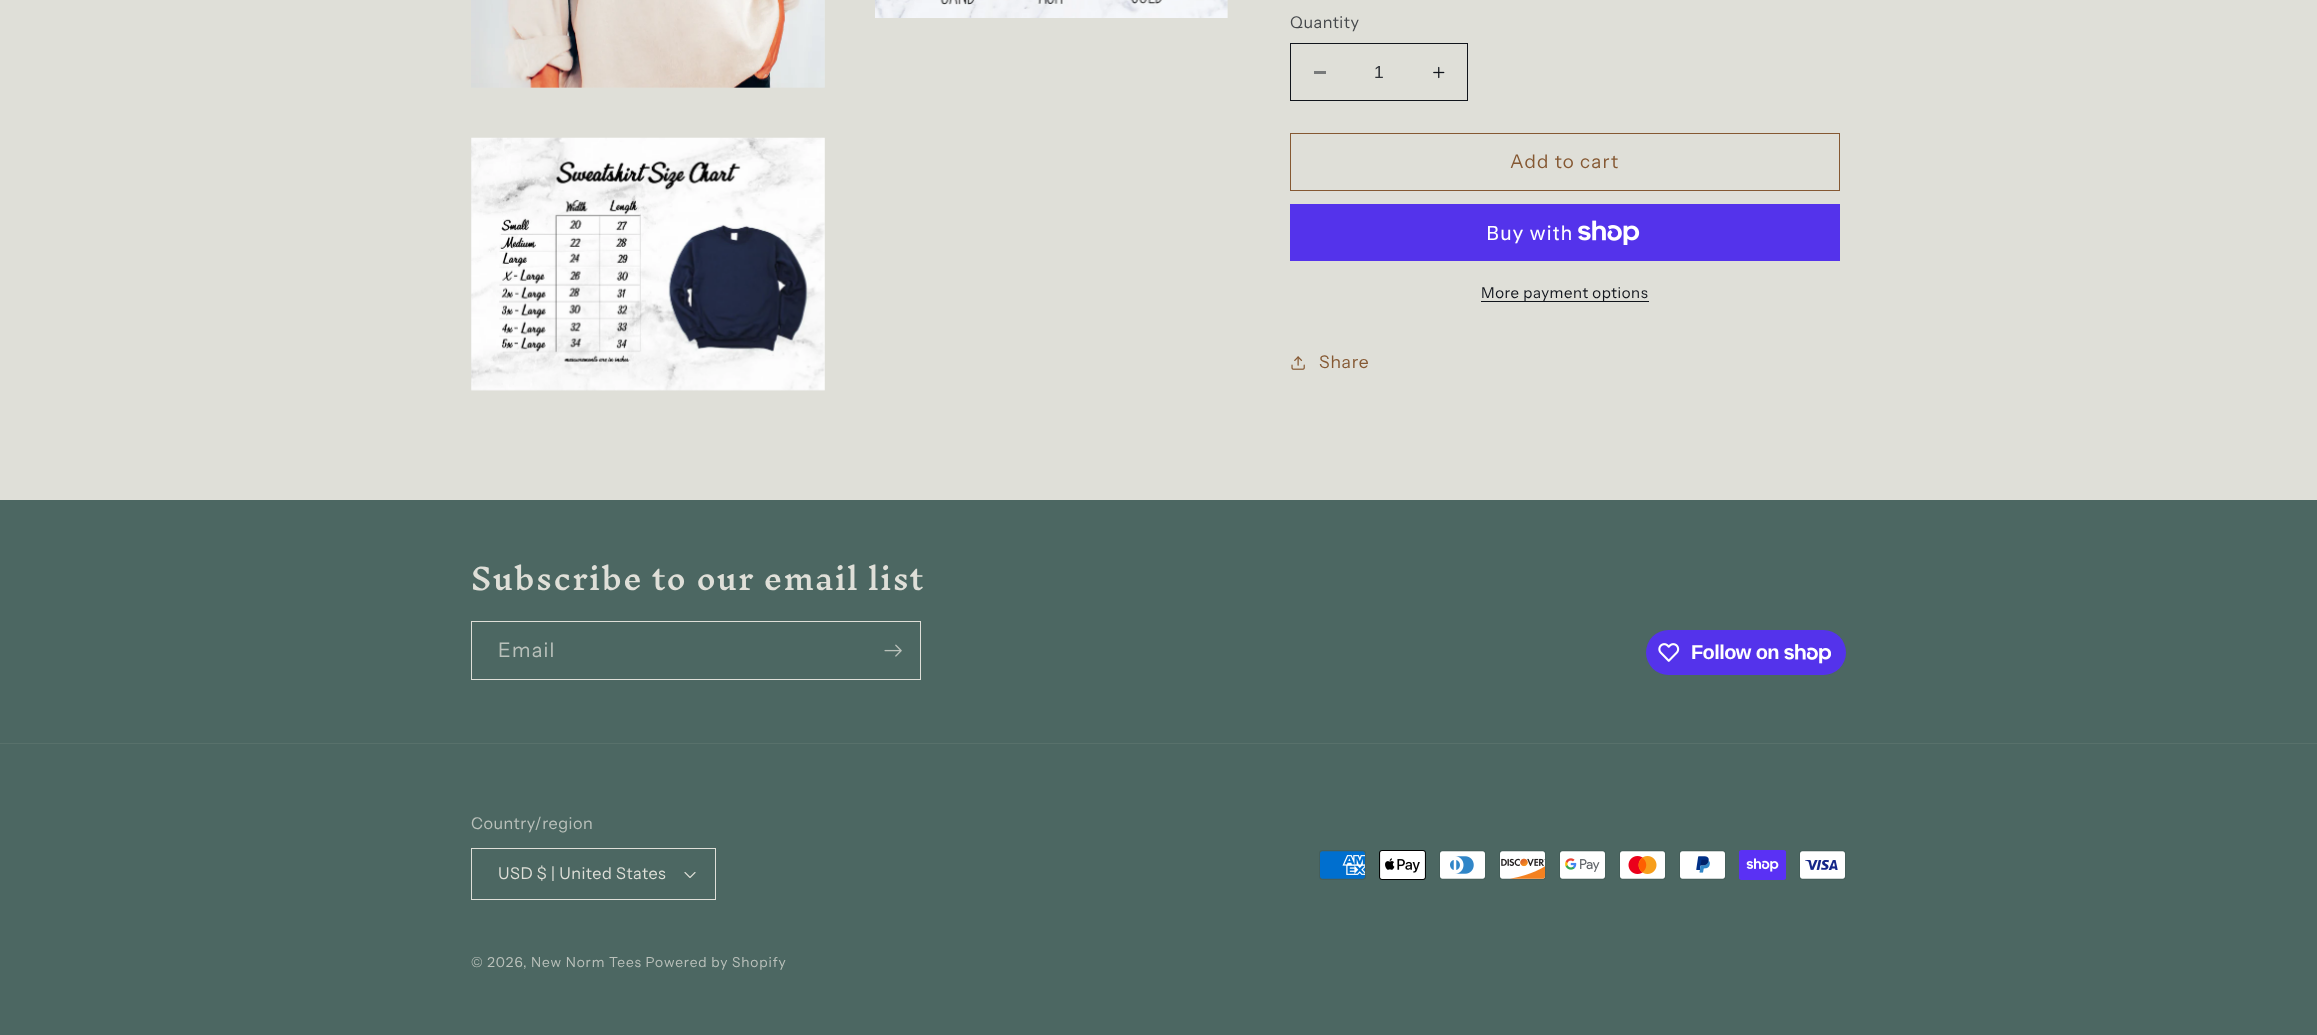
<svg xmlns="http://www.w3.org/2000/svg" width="2317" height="1035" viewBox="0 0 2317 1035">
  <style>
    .t1 { font: 16.25px Instrument Sans; letter-spacing: 0.5px; fill: #45484b; }
    .t2 { font: 17.5px Liberation Sans; fill: #303338; }
    .t3 { font: 18.75px Instrument Sans; letter-spacing: 1.25px; fill: #855832; }
    .t4 { font: 20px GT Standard; letter-spacing: 0.75px; fill: #fff; }
    .t5 { font: 15px Instrument Sans; letter-spacing: 0.6px; fill: #11151c; }
    .t6 { font: 17.5px Instrument Sans; letter-spacing: 0.75px; fill: #855832; }
    .t7 { font: 500 29.25px Inknut Antiqua; letter-spacing: 1px; fill: #dfdfd8; }
    .t8 { font: 20px Instrument Sans; letter-spacing: 1.25px; fill: #bac1bb; }
    .t9 { font: bold 20px Liberation Sans; letter-spacing: -0.6px; fill: #fff; }
    .t10 { font: 16.25px Instrument Sans; letter-spacing: 0.5px; fill: #bac1bb; }
    .t11 { font: 16.25px Instrument Sans; letter-spacing: 0.5px; fill: #dfdfd8; }
    .t12 { font: 13.75px Instrument Sans; letter-spacing: 0.9px; fill: #bac1bb; }
  </style>
  <rect width="100%" height="100%" fill="#dfdfd8"/>
  <image x="471" y="0" width="354" height="88" href="images/1.png"/>
  <image x="875" y="0" width="353" height="18" href="images/2.png"/>
  <image x="471" y="137" width="354" height="254" href="images/3.png"/>
  <text x="1290" y="28" class="t1">Quantity</text>
  <rect x="1314" y="71" width="12" height="3" fill="#787a7a"/>
  <image x="1433" y="66" width="12" height="13" href="images/4.png"/>
  <rect x="1290.5" y="43.5" width="177" height="57" fill="none" stroke="#11151c"/>
  <text x="1374" y="78" class="t2">1</text>
  <rect x="1290.5" y="133.5" width="549" height="57" fill="none" stroke="#855832"/>
  <text x="1510" y="168" class="t3">Add to cart</text>
  <rect x="1290" y="204" width="550" height="57" fill="#5433eb"/>
  <text x="1486" y="240" class="t4">Buy with</text>
  <image x="1578" y="220" width="62" height="25" href="images/5.png"/>
  <rect x="1481" y="301" width="168" height="1" fill="#11151c"/>
  <text x="1481" y="298" class="t5">More payment options</text>
  <image x="1291" y="356" width="14" height="14" href="images/6.png"/>
  <text x="1319" y="368" class="t6">Share</text>
  <rect x="0" y="500" width="2317" height="535" fill="#4c6762"/>
  <text x="471" y="590" class="t7">Subscribe to our email list</text>
  <rect x="471.5" y="621.5" width="449" height="58" fill="none" stroke="#dfdfd8"/>
  <text x="498" y="657" class="t8">Email</text>
  <image x="884" y="644" width="18" height="13" href="images/7.png"/>
  <rect x="1646" y="630" width="200" height="45" rx="22.5" fill="#5433eb"/>
  <image x="1658" y="643" width="22" height="19" href="images/8.png"/>
  <text x="1691" y="659" class="t9">Follow on</text>
  <image x="1784" y="644" width="47" height="20" href="images/9.png"/>
  <rect x="0" y="743" width="2317" height="1" fill="#58716b"/>
  <text x="471" y="829" class="t10">Country/region</text>
  <image x="684" y="872" width="12" height="6" href="images/10.png"/>
  <rect x="471.5" y="848.5" width="244" height="51" fill="none" stroke="#dfdfd8"/>
  <text x="498" y="879" class="t11">USD $ | United States</text>
  <image x="1319" y="850" width="47" height="30" href="images/11.png"/>
  <image x="1379" y="850" width="47" height="30" href="images/12.png"/>
  <image x="1439" y="850" width="47" height="30" href="images/13.png"/>
  <image x="1499" y="850" width="47" height="30" href="images/14.png"/>
  <image x="1559" y="850" width="47" height="30" href="images/15.png"/>
  <image x="1619" y="850" width="47" height="30" href="images/16.png"/>
  <image x="1679" y="850" width="47" height="30" href="images/17.png"/>
  <image x="1739" y="850" width="47" height="30" href="images/18.png"/>
  <image x="1799" y="850" width="47" height="30" href="images/19.png"/>
  <text x="471" y="967" class="t12">© 2026, New Norm Tees Powered by Shopify</text>
</svg>
